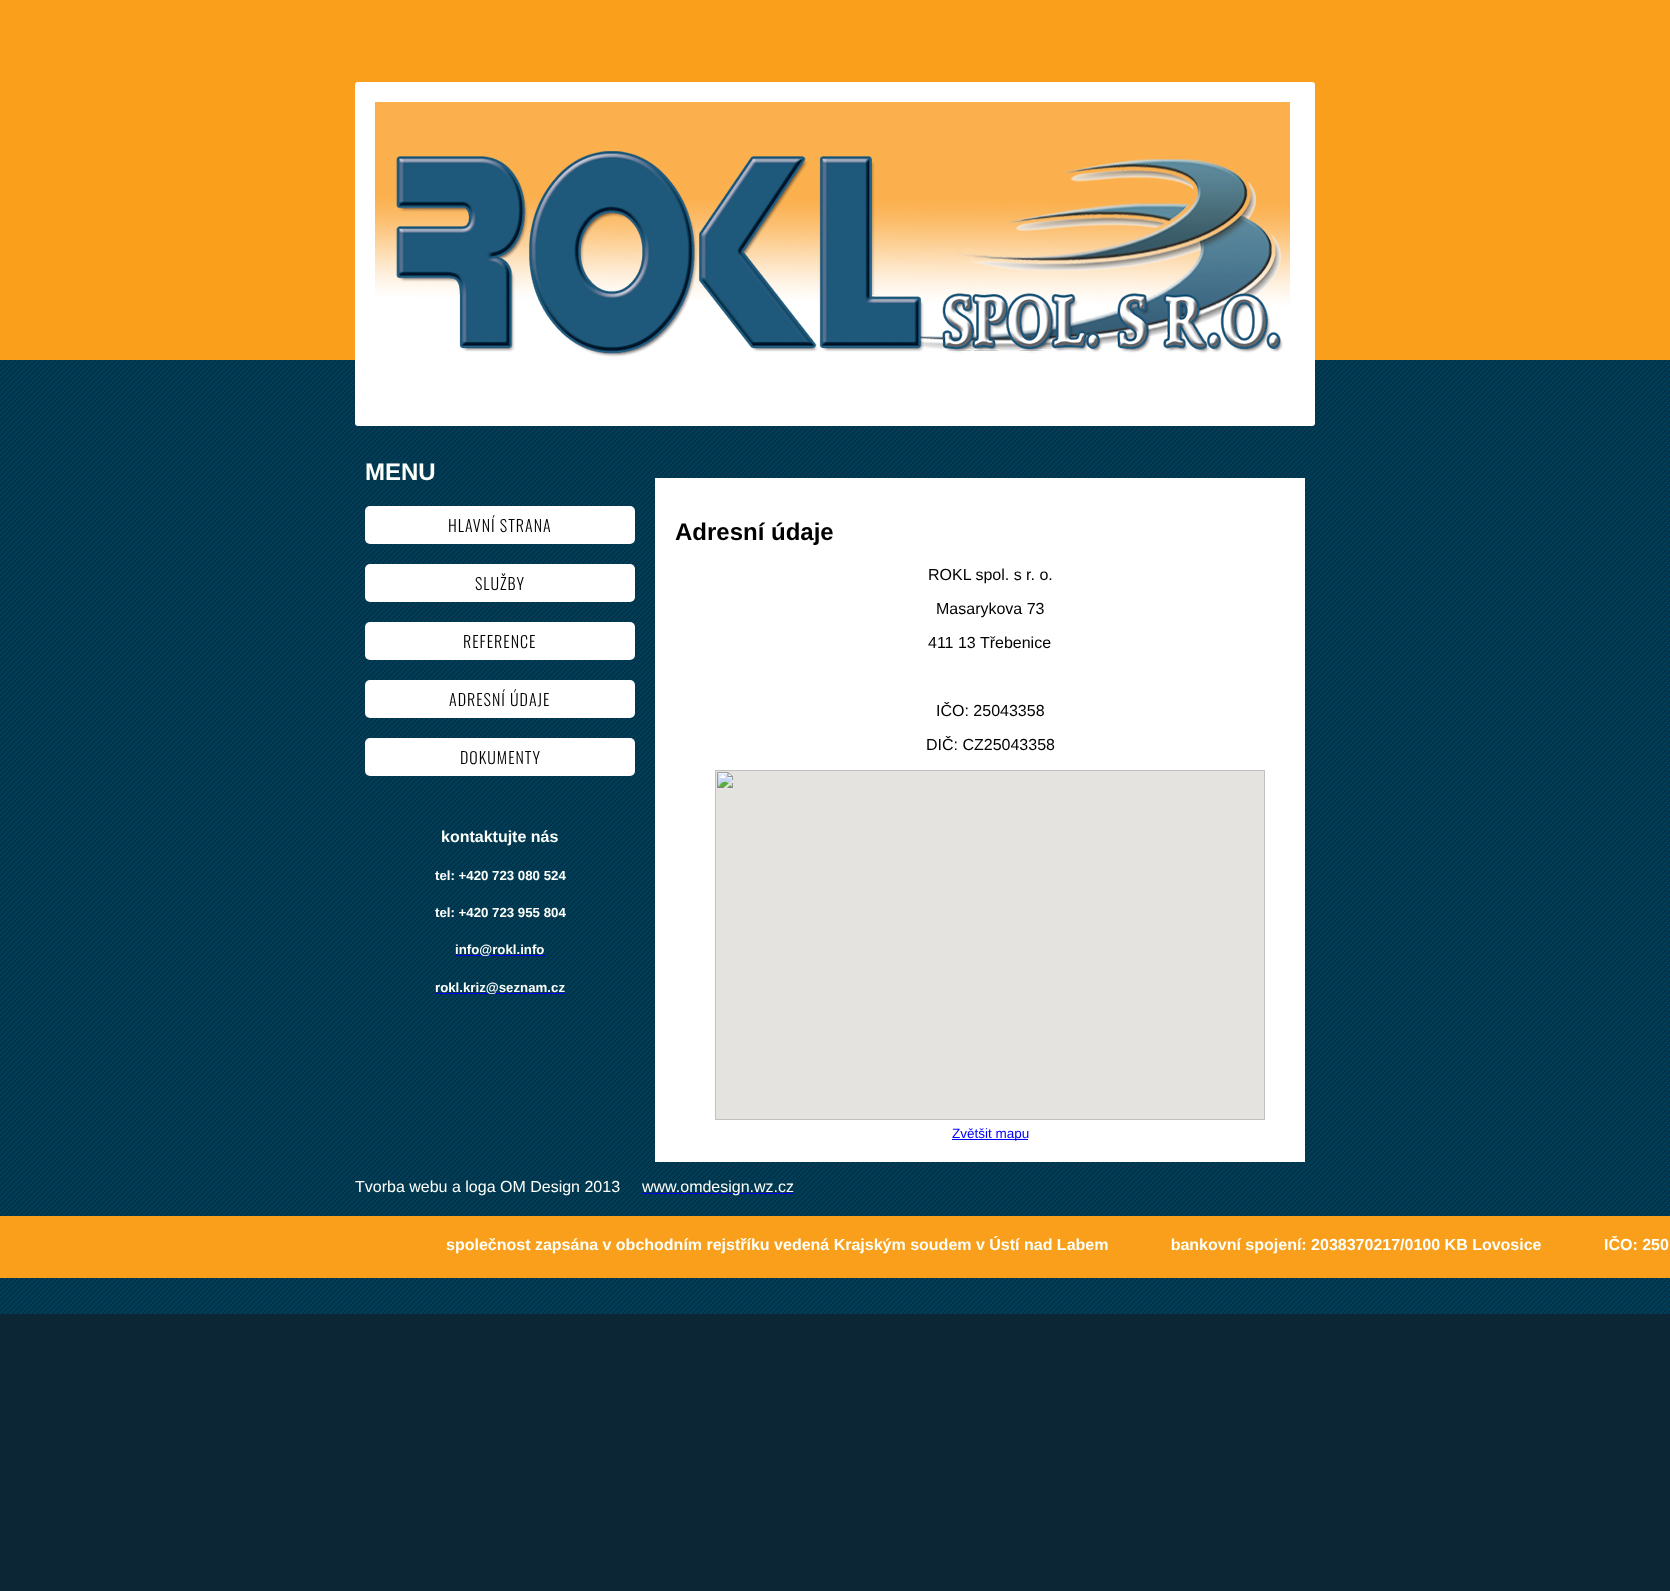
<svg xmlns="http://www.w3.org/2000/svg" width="1670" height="1591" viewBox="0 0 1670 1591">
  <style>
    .t1 { font: bold 24px Liberation Sans; fill: #fdfffa; }
    .t2 { font: 300 16px Oswald; letter-spacing: 1px; fill: #000; }
    .t3 { font: bold 16px Liberation Sans; fill: #fdfffa; }
    .t4 { font: bold 13.25px Liberation Sans; fill: #fdfffa; }
    .t5 { font: bold 24px Liberation Sans; fill: #000; }
    .t6 { font: 16px Liberation Sans; fill: #000; }
    .t7 { font: 13.5px Liberation Sans; fill: #00f; }
    .t8 { font: 16px Liberation Sans; fill: #fdfffa; }
  </style>
  <defs>
    <clipPath id="clip1"><rect x="0" y="1236" width="1670" height="18"/></clipPath>
  </defs>
  <rect width="100%" height="100%" fill="#0c2635"/>
  <rect x="0" y="0" width="1670" height="360" fill="#fa9f1b"/>
  <image x="0" y="360" width="1670" height="954" href="images/2.png"/>
  <rect x="355" y="82" width="960" height="344" rx="3" fill="#fff"/>
  <image x="375" y="102" width="915" height="255" href="images/1.png"/>
  <text x="365" y="480" class="t1">MENU</text>
  <rect x="365" y="506" width="270" height="38" rx="5" fill="#fff"/>
  <text x="448" y="532" class="t2">HLAVNÍ STRANA</text>
  <rect x="365" y="564" width="270" height="38" rx="5" fill="#fff"/>
  <text x="475" y="590" class="t2">SLUŽBY</text>
  <rect x="365" y="622" width="270" height="38" rx="5" fill="#fff"/>
  <text x="463" y="648" class="t2">REFERENCE</text>
  <rect x="365" y="680" width="270" height="38" rx="5" fill="#fff"/>
  <text x="449" y="706" class="t2">ADRESNÍ ÚDAJE</text>
  <rect x="365" y="738" width="270" height="38" rx="5" fill="#fff"/>
  <text x="460" y="764" class="t2">DOKUMENTY</text>
  <text x="441" y="842" class="t3">kontaktujte nás</text>
  <text x="435" y="880" class="t4">tel: +420 723 080 524</text>
  <text x="435" y="917" class="t4">tel: +420 723 955 804</text>
  <rect x="455" y="955" width="90" height="1" fill="#00e"/>
  <text x="455" y="954" class="t4">info@rokl.info</text>
  <rect x="435" y="993" width="130" height="1" fill="#00e"/>
  <text x="435" y="992" class="t4">rokl.kriz@seznam.cz</text>
  <rect x="655" y="478" width="650" height="684" fill="#fff"/>
  <text x="675" y="540" class="t5">Adresní údaje</text>
  <text x="928" y="580" class="t6">ROKL spol. s r. o.</text>
  <text x="936" y="614" class="t6">Masarykova 73</text>
  <text x="928" y="648" class="t6">411 13 Třebenice</text>
  <text x="936" y="716" class="t6">IČO: 25043358</text>
  <text x="926" y="750" class="t6">DIČ: CZ25043358</text>
  <image x="715" y="770" width="550" height="350" href="images/3.png"/>
  <rect x="952" y="1139" width="76" height="1" fill="#00f"/>
  <text x="952" y="1138" class="t7">Zvětšit mapu</text>
  <text x="355" y="1192" class="t8">Tvorba webu a loga OM Design 2013</text>
  <rect x="642" y="1193" width="152" height="1" fill="#00e"/>
  <text x="642" y="1192" class="t8">www.omdesign.wz.cz</text>
  <rect x="0" y="1216" width="1670" height="62" fill="#fa9f1b"/>
  <g clip-path="url(#clip1)">
    <text x="446" y="1250" class="t3" xml:space="preserve">společnost zapsána v obchodním rejstříku vedená Krajským soudem v Ústí nad Labem              bankovní spojení: 2038370217/0100 KB Lovosice</text>
    <text x="1604" y="1250" class="t3">IČO: 250</text>
  </g>
</svg>
